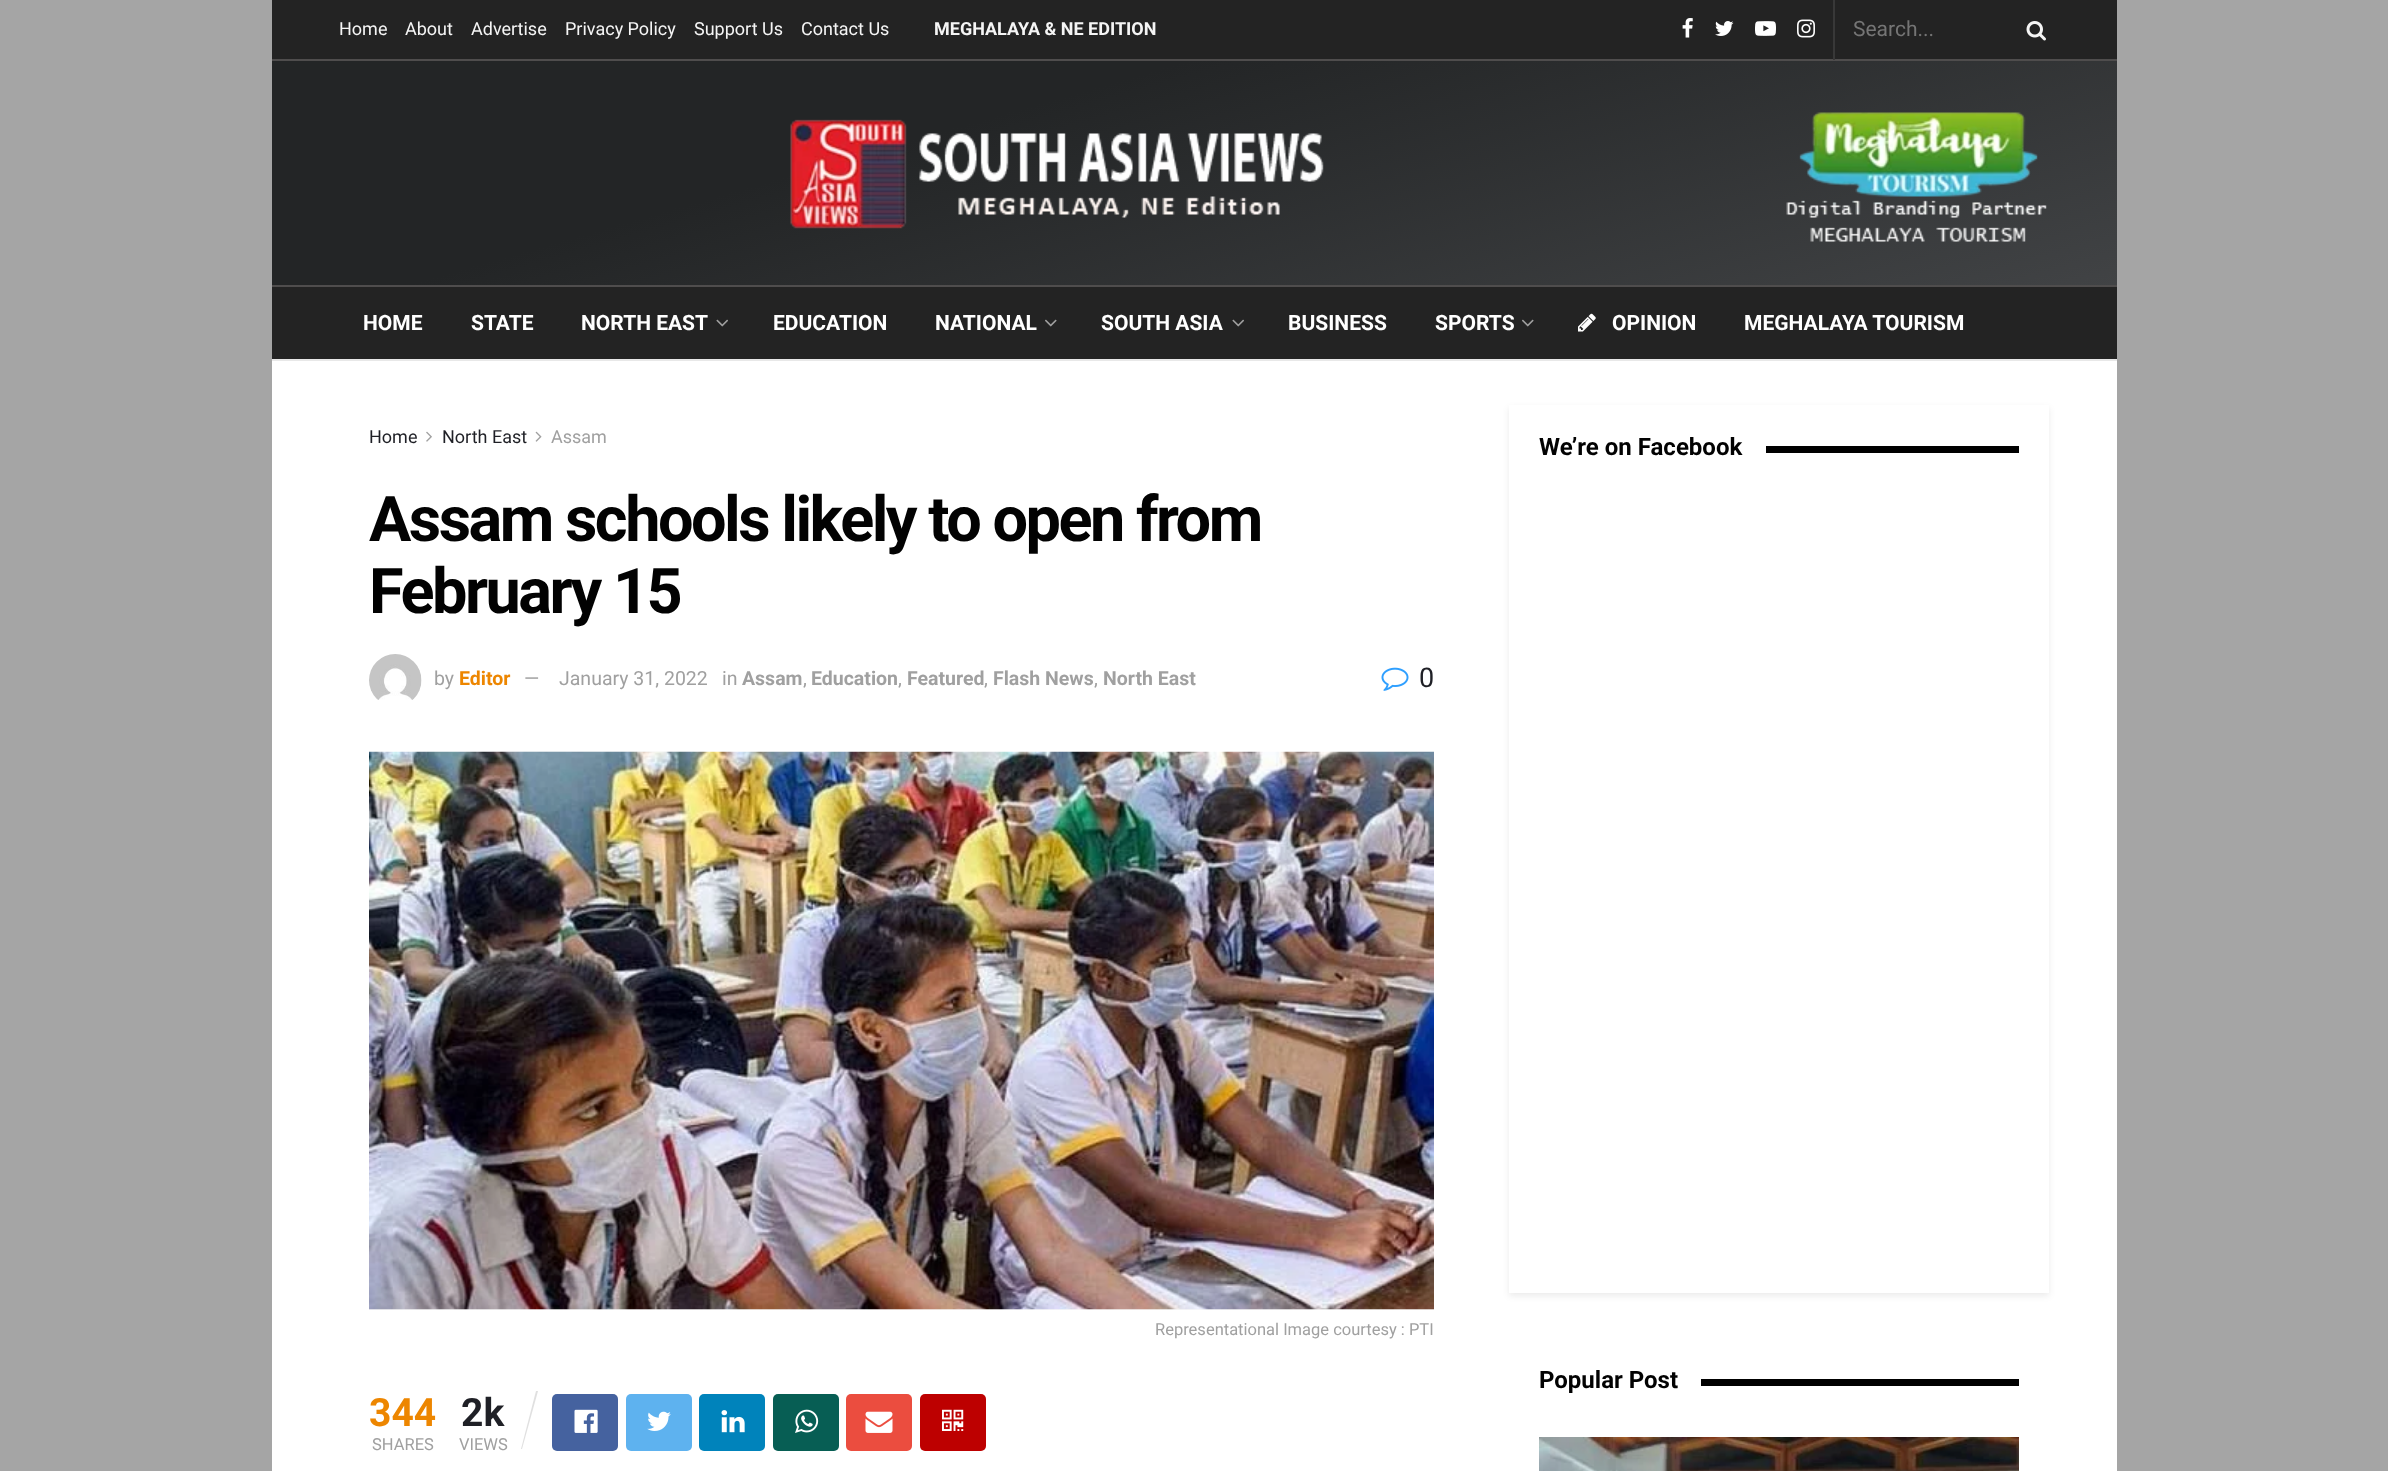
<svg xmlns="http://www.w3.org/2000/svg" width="2388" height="1471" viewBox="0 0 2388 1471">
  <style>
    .t1 { font: 18px Roboto; fill: #f5f5f5; }
    .t2 { font: bold 18px Roboto; fill: #f5f5f5; }
    .t3 { font: 21px Roboto; fill: #757575; }
    .t4 { font: bold 21px Roboto; fill: #fff; }
    .t5 { font: 18px Roboto; fill: #1f2026; }
    .t6 { font: 18px Roboto; fill: #a0a0a0; }
    .t7 { font: bold 63px Roboto; letter-spacing: -2.5px; fill: #020202; }
    .t8 { font: 19.5px Roboto; fill: #a0a0a0; }
    .t9 { font: bold 19.5px Roboto; fill: #ed8600; }
    .t10 { font: bold 19.5px Roboto; fill: #a0a0a0; }
    .t11 { font: 27px Roboto; fill: #1f2026; }
    .t12 { font: 16.5px Roboto; fill: #a0a0a0; }
    .t13 { font: bold 39px Roboto; fill: #ed8600; }
    .t14 { font: bold 39px Roboto; fill: #1f2026; }
    .t15 { font: bold 24px Roboto; fill: #020202; }
  </style>
  <defs>
    <linearGradient id="g1" gradientUnits="userSpaceOnUse" x1="1094" y1="-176" x2="1294" y2="521"><stop offset="0.35" stop-color="#232526"/><stop offset="1" stop-color="#414345"/></linearGradient>
    <clipPath id="clip1"><path d="M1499 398H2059V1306H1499ZM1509 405H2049V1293H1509Z" clip-rule="evenodd"/></clipPath>
  </defs>
  <rect width="100%" height="100%" fill="#a5a5a5"/>
  <rect x="272" y="0" width="1845" height="59" fill="#232323"/>
  <rect x="272" y="59" width="1845" height="2" fill="#4f4d4d"/>
  <text x="339" y="35" class="t1">Home</text>
  <text x="405" y="35" class="t1">About</text>
  <text x="471" y="35" class="t1">Advertise</text>
  <text x="565" y="35" class="t1">Privacy Policy</text>
  <text x="694" y="35" class="t1">Support Us</text>
  <text x="801" y="35" class="t1">Contact Us</text>
  <text x="934" y="35" class="t2">MEGHALAYA &amp; NE EDITION</text>
  <rect x="1833" y="0" width="2" height="60" fill="#383838"/>
  <image x="1682" y="18" width="11" height="20" href="images/1.png"/>
  <image x="1715" y="21" width="19" height="15" href="images/2.png"/>
  <image x="1755" y="21" width="21" height="15" href="images/3.png"/>
  <image x="1797" y="19" width="18" height="19" href="images/4.png"/>
  <text x="1853" y="36" class="t3">Search...</text>
  <image x="2026" y="21" width="20" height="20" href="images/5.png"/>
  <rect x="272" y="61" width="1845" height="224" fill="url(#g1)"/>
  <image x="790" y="119" width="534" height="110" href="images/6.png"/>
  <image x="1786" y="112" width="261" height="130" href="images/7.png"/>
  <rect x="272" y="287" width="1845" height="72" fill="#232323"/>
  <rect x="272" y="285" width="1845" height="2" fill="#4f4d4d"/>
  <rect x="272" y="359" width="1845" height="2" fill="#e8e8e8"/>
  <text x="363" y="330" class="t4">HOME</text>
  <text x="471" y="330" class="t4">STATE</text>
  <text x="581" y="330" class="t4">NORTH EAST</text>
  <image x="716" y="319" width="12" height="8" href="images/8.png"/>
  <text x="773" y="330" class="t4">EDUCATION</text>
  <text x="935" y="330" class="t4">NATIONAL</text>
  <image x="1045" y="319" width="12" height="8" href="images/9.png"/>
  <text x="1101" y="330" class="t4">SOUTH ASIA</text>
  <image x="1232" y="319" width="12" height="8" href="images/8.png"/>
  <text x="1288" y="330" class="t4">BUSINESS</text>
  <text x="1435" y="330" class="t4">SPORTS</text>
  <image x="1522" y="319" width="12" height="8" href="images/9.png"/>
  <image x="1578" y="313" width="18" height="19" href="images/10.png"/>
  <text x="1612" y="330" class="t4">OPINION</text>
  <text x="1744" y="330" class="t4">MEGHALAYA TOURISM</text>
  <rect x="272" y="361" width="1845" height="1110" fill="#fff"/>
  <text x="369" y="443" class="t5">Home</text>
  <image x="426" y="431" width="6" height="11" href="images/11.png"/>
  <text x="442" y="443" class="t5">North East</text>
  <image x="535" y="431" width="7" height="11" href="images/12.png"/>
  <text x="551" y="443" class="t6">Assam</text>
  <text x="369" y="541" class="t7">Assam schools likely to open from</text>
  <text x="369" y="613" class="t7">February 15</text>
  <image x="369" y="654" width="53" height="46" href="images/13.png"/>
  <text x="434" y="685" class="t8">by</text>
  <text x="459" y="685" class="t9">Editor</text>
  <text x="524" y="685" class="t8">—</text>
  <text x="559" y="685" class="t8">January 31, 2022</text>
  <text x="722" y="685" class="t8">in</text>
  <text x="742" y="685" class="t10">Assam</text>
  <text x="803" y="685" class="t8">,</text>
  <text x="811" y="685" class="t10">Education</text>
  <text x="898" y="685" class="t8">,</text>
  <text x="907" y="685" class="t10">Featured</text>
  <text x="984" y="685" class="t8">,</text>
  <text x="993" y="685" class="t10">Flash News</text>
  <text x="1094" y="685" class="t8">,</text>
  <text x="1103" y="685" class="t10">North East</text>
  <image x="1381" y="667" width="28" height="24" href="images/14.png"/>
  <text x="1419" y="687" class="t11">0</text>
  <rect x="369" y="1309" width="1065" height="1" fill="#f7f7f7"/>
  <image x="492" y="751" width="202" height="1" href="images/16.png"/>
  <image x="369" y="751" width="1065" height="559" href="images/15.png"/>
  <text x="1155" y="1335" class="t12">Representational Image courtesy : PTI</text>
  <text x="369" y="1426" class="t13">344</text>
  <text x="372" y="1450" class="t12">SHARES</text>
  <text x="461" y="1426" class="t14">2k</text>
  <path d="M536 1391H538L522 1449H521Z" fill="#e0e0e0"/>
  <text x="459" y="1450" class="t12">VIEWS</text>
  <rect x="552" y="1394" width="66" height="57" rx="5" fill="#45629f"/>
  <image x="574" y="1409" width="24" height="24" href="images/17.png"/>
  <rect x="626" y="1394" width="66" height="57" rx="5" fill="#5eb2ef"/>
  <image x="647" y="1411" width="24" height="20" href="images/18.png"/>
  <rect x="699" y="1394" width="66" height="57" rx="5" fill="#0083bb"/>
  <image x="721" y="1410" width="24" height="23" href="images/19.png"/>
  <rect x="773" y="1394" width="66" height="57" rx="5" fill="#075e54"/>
  <image x="795" y="1409" width="24" height="24" href="images/20.png"/>
  <rect x="846" y="1394" width="66" height="57" rx="5" fill="#eb4d3f"/>
  <image x="865" y="1411" width="28" height="22" href="images/21.png"/>
  <rect x="920" y="1394" width="66" height="57" rx="5" fill="#bd0000"/>
  <image x="942" y="1409" width="22" height="22" href="images/22.png"/>
  <g clip-path="url(#clip1)">
    <rect x="1509" y="408" width="540" height="888" fill="#00000014" filter="blur(3px)"/>
  </g>
  <text x="1539" y="455" class="t15">We’re on Facebook</text>
  <rect x="1766" y="446" width="253" height="7" fill="#000"/>
  <text x="1539" y="1388" class="t15">Popular Post</text>
  <rect x="1701" y="1379" width="318" height="7" fill="#000"/>
  <image x="1539" y="1437" width="480" height="34" href="images/23.png"/>
</svg>
